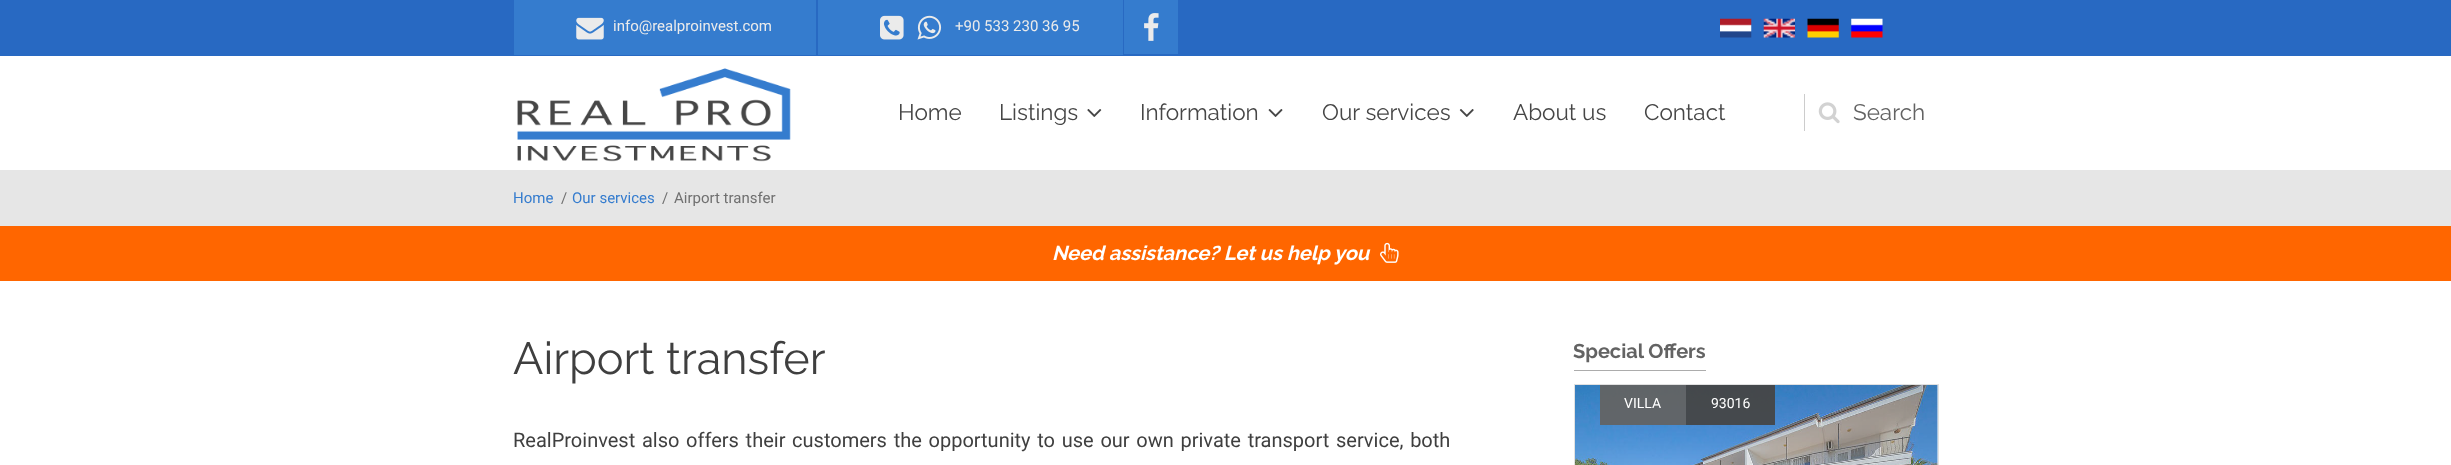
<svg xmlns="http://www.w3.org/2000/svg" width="2451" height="465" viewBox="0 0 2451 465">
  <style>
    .t1 { font: 15px Roboto; fill: #ebebeb; }
    .t2 { font: 22.5px Raleway; fill: #464646; }
    .t3 { font: 22.5px Raleway; fill: #636363; }
    .t4 { font: 15px Roboto; fill: #357cce; }
    .t5 { font: 15px Roboto; fill: #707070; }
    .t6 { font: italic bold 20px Raleway; fill: #fff; }
    .t7 { font: 45px Raleway; fill: #3f3f3f; }
    .t8 { font: 20px Roboto; fill: #3f3f3f; }
    .t9 { font: bold 20px Raleway; fill: #636363; }
    .t10 { font: 14px Roboto; fill: #fff; }
  </style>
  <rect width="100%" height="100%" fill="#fff"/>
  <rect x="0" y="0" width="2451" height="56" fill="#2869c2"/>
  <rect x="514" y="0" width="302" height="55" fill="#357cce"/>
  <image x="576" y="17" width="28" height="23" href="images/1.png"/>
  <text x="613" y="31" class="t1">info@realproinvest.com</text>
  <rect x="818" y="0" width="305" height="55" fill="#357cce"/>
  <image x="880" y="15" width="24" height="25" href="images/2.png"/>
  <image x="917" y="15" width="25" height="25" href="images/3.png"/>
  <text x="955" y="31" class="t1">+90 533 230 36 95</text>
  <rect x="1124" y="0" width="54" height="54" fill="#357cce"/>
  <image x="1144" y="13" width="15" height="28" href="images/4.png"/>
  <image x="1720" y="18" width="32" height="20" href="images/5.png"/>
  <image x="1763" y="18" width="32" height="20" href="images/6.png"/>
  <image x="1807" y="18" width="32" height="20" href="images/7.png"/>
  <image x="1851" y="18" width="32" height="20" href="images/8.png"/>
  <image x="517" y="68" width="274" height="94" href="images/9.png"/>
  <text x="898" y="120" class="t2">Home</text>
  <text x="999" y="120" class="t2">Listings</text>
  <image x="1087" y="109" width="15" height="8" href="images/10.png"/>
  <text x="1140" y="120" class="t2">Information</text>
  <image x="1268" y="109" width="15" height="8" href="images/11.png"/>
  <text x="1322" y="120" class="t2">Our services</text>
  <image x="1459" y="109" width="15" height="8" href="images/12.png"/>
  <text x="1513" y="120" class="t2">About us</text>
  <text x="1644" y="120" class="t2">Contact</text>
  <rect x="1804" y="94" width="1" height="37" fill="#ccc"/>
  <image x="1818" y="102" width="22" height="22" href="images/13.png"/>
  <text x="1853" y="120" class="t3">Search</text>
  <rect x="0" y="170" width="2451" height="56" fill="#e6e6e6"/>
  <text x="513" y="203" class="t4">Home</text>
  <text x="561" y="203" class="t5">/</text>
  <text x="572" y="203" class="t4">Our services</text>
  <text x="662" y="203" class="t5">/</text>
  <text x="674" y="203" class="t5">Airport transfer</text>
  <rect x="0" y="226" width="2451" height="55" fill="#f60"/>
  <text x="1052" y="260" class="t6">Need assistance? Let us help you</text>
  <image x="1380" y="242" width="19" height="21" href="images/14.png"/>
  <text x="513" y="374" class="t7">Airport transfer</text>
  <text x="513" y="447" word-spacing="1.75" class="t8">RealProinvest also offers their customers the opportunity to use our own private transport service, both</text>
  <rect x="1574" y="370" width="132" height="1" fill="#acacac"/>
  <text x="1573" y="358" class="t9">Special Offers</text>
  <rect x="1574.5" y="384.5" width="364" height="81" fill="none" stroke="#e1e1e1"/>
  <image x="1575" y="385" width="363" height="80" href="images/15.png"/>
  <rect x="1600" y="385" width="86" height="40" fill="#636363f2"/>
  <text x="1624" y="408" class="t10">VILLA</text>
  <rect x="1686" y="385" width="89" height="40" fill="#464646f2"/>
  <text x="1711" y="408" class="t10">93016</text>
</svg>
